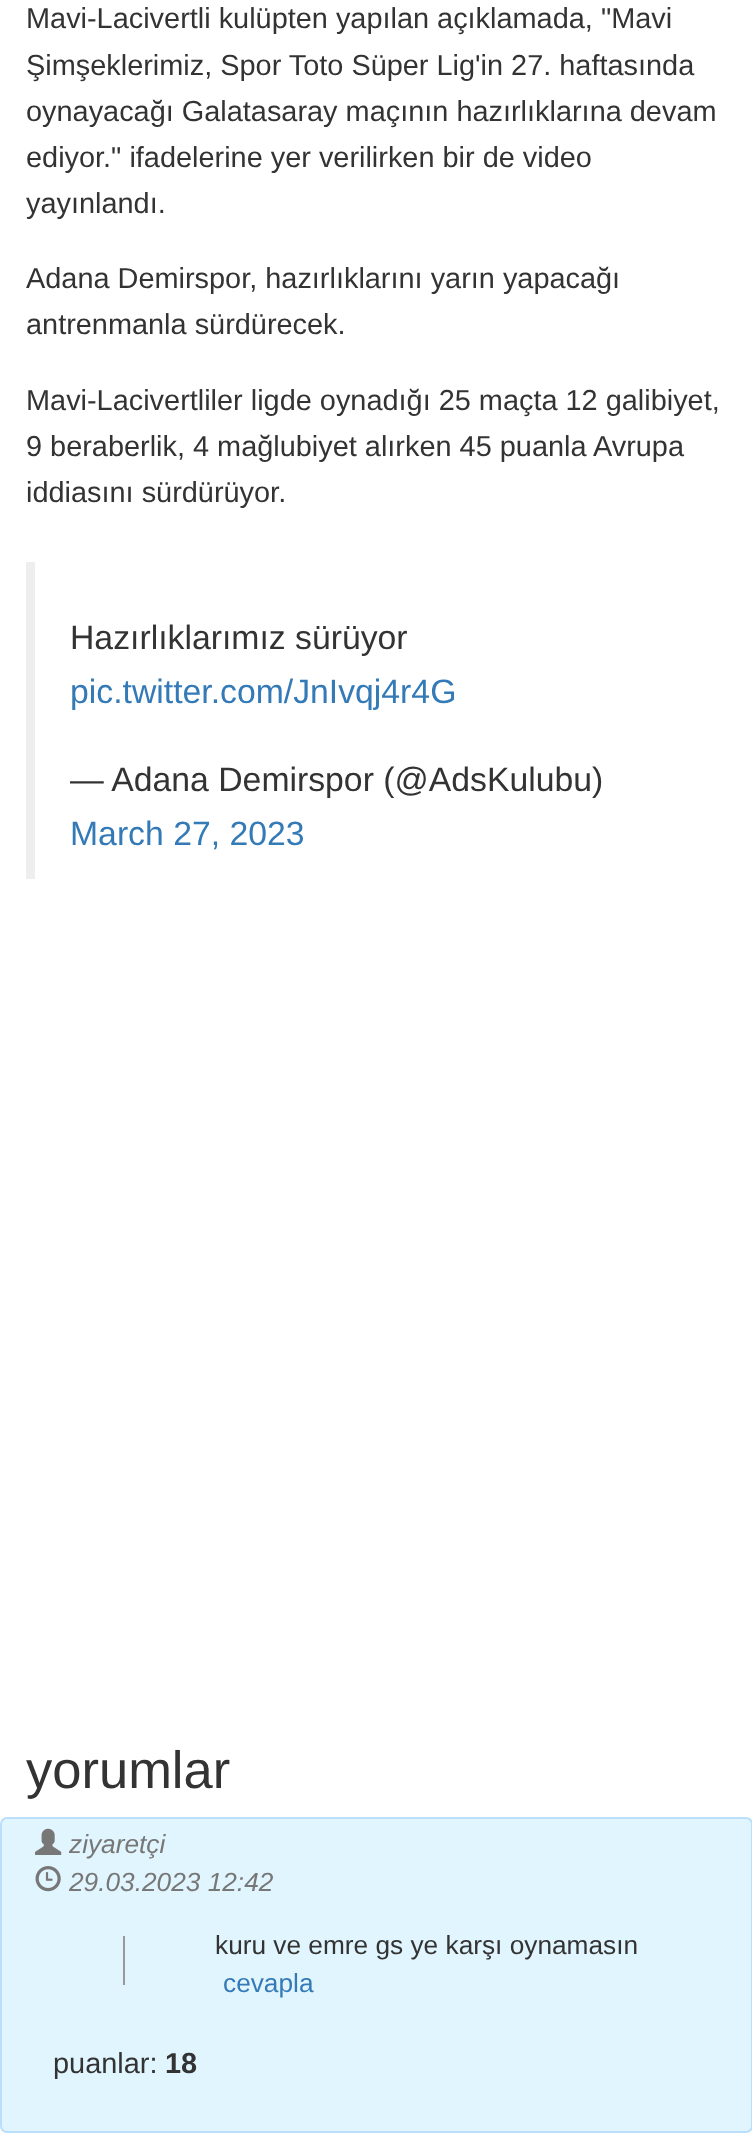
<svg xmlns="http://www.w3.org/2000/svg" width="752" height="2137" viewBox="0 0 752 2137">
  <style>
    .t1 { font: 28.9px Liberation Sans; fill: #333; }
    .t2 { font: 33.75px Liberation Sans; fill: #333; }
    .t3 { font: 33.75px Liberation Sans; fill: #337ab7; }
    .t4 { font: 52.5px Liberation Sans; fill: #333; }
    .t5 { font: italic 26.25px Liberation Sans; fill: #777; }
    .t6 { font: 26.25px Liberation Sans; fill: #333; }
    .t7 { font: bold 28.9px Liberation Sans; fill: #333; }
    .t8 { font: 26.25px Liberation Sans; fill: #337ab7; }
  </style>
  <rect width="100%" height="100%" fill="#fff"/>
  <text x="26" y="28" class="t1">Mavi-Lacivertli kulüpten yapılan açıklamada, "Mavi</text>
  <text x="26" y="75" class="t1">Şimşeklerimiz, Spor Toto Süper Lig'in 27. haftasında</text>
  <text x="26" y="121" class="t1">oynayacağı Galatasaray maçının hazırlıklarına devam</text>
  <text x="26" y="167" class="t1">ediyor." ifadelerine yer verilirken bir de video</text>
  <text x="26" y="213" class="t1">yayınlandı.</text>
  <text x="26" y="288" class="t1">Adana Demirspor, hazırlıklarını yarın yapacağı</text>
  <text x="26" y="334" class="t1">antrenmanla sürdürecek.</text>
  <text x="26" y="410" class="t1">Mavi-Lacivertliler ligde oynadığı 25 maçta 12 galibiyet,</text>
  <text x="26" y="456" class="t1">9 beraberlik, 4 mağlubiyet alırken 45 puanla Avrupa</text>
  <text x="26" y="502" class="t1">iddiasını sürdürüyor.</text>
  <rect x="26" y="562" width="9" height="317" fill="#eee"/>
  <text x="70" y="649" class="t2">Hazırlıklarımız sürüyor</text>
  <text x="70" y="703" class="t3">pic.twitter.com/JnIvqj4r4G</text>
  <text x="70" y="791" class="t2">— Adana Demirspor (@AdsKulubu)</text>
  <text x="70" y="845" class="t3">March 27, 2023</text>
  <text x="26" y="1788" class="t4">yorumlar</text>
  <rect x="1" y="1818" width="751" height="314" rx="6" fill="#e1f5fe" stroke="#bbdefb" stroke-width="2"/>
  <image x="35" y="1828" width="27" height="27" href="images/1.png"/>
  <text x="69" y="1853" class="t5">ziyaretçi</text>
  <image x="35" y="1866" width="26" height="26" href="images/2.png"/>
  <text x="69" y="1891" class="t5">29.03.2023 12:42</text>
  <text x="215" y="1954" class="t6">kuru ve emre gs ye karşı oynamasın</text>
  <rect x="123" y="1936" width="2" height="49" fill="#999"/>
  <text x="53" y="2073" class="t1">puanlar:</text>
  <text x="165" y="2073" class="t7">18</text>
  <text x="223" y="1992" class="t8">cevapla</text>
</svg>
